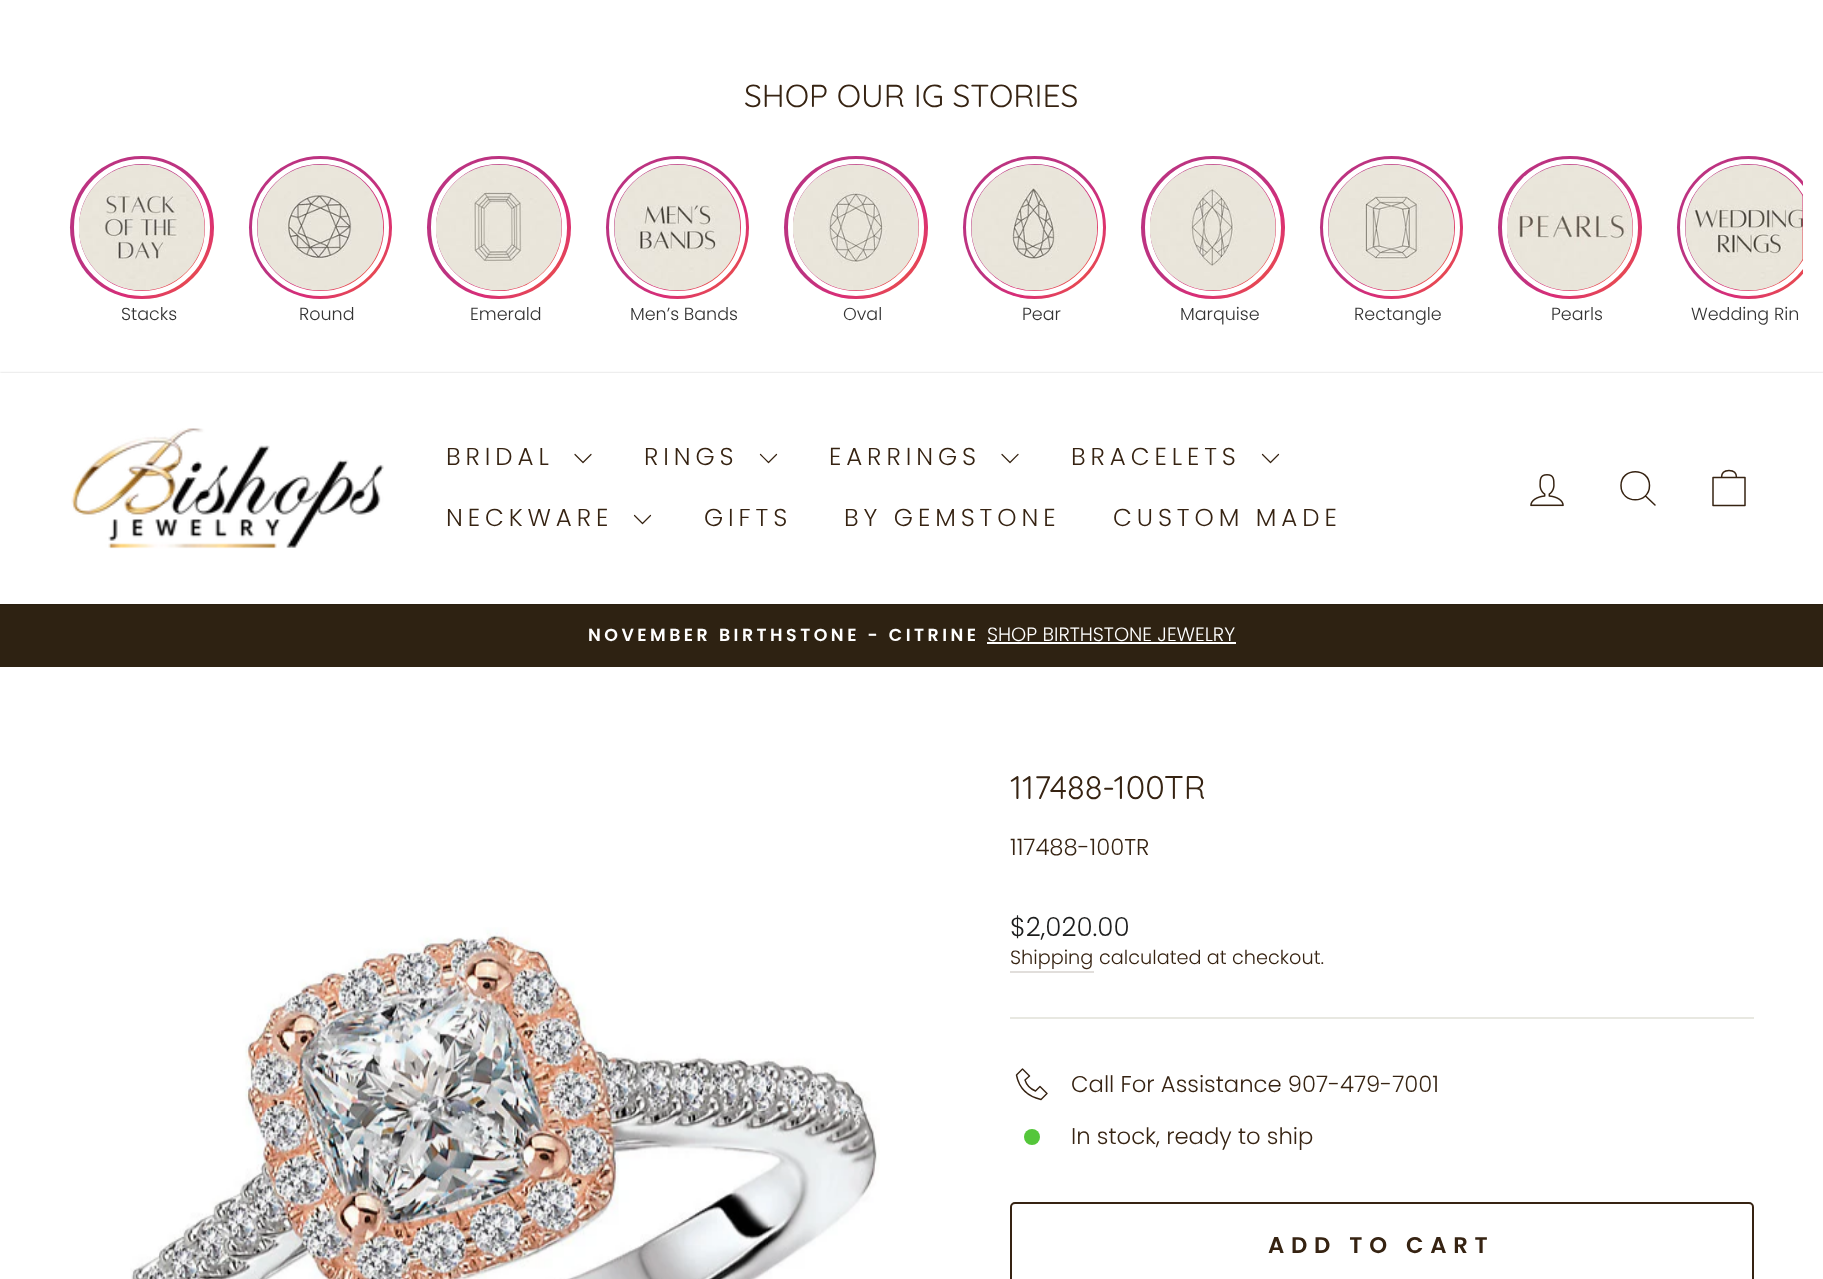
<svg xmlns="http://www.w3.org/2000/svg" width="1823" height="1279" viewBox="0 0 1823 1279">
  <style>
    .t1 { font: 31.8px Quicksand; fill: #362312; }
    .t2 { font: 300 17.5px Poppins; fill: #333; }
    .t3 { font: 300 24.5px Poppins; letter-spacing: 4.9px; fill: #362312; }
    .t4 { font: 600 17.4px Poppins; letter-spacing: 3.5px; fill: #fff; }
    .t5 { font: 300 19.3px Poppins; fill: #fff; }
    .t6 { font: 32.75px Quicksand; fill: #362312; }
    .t7 { font: 300 22.75px Poppins; fill: #362312; }
    .t8 { font: 300 26.25px Poppins; fill: #1c1d1d; }
    .t9 { font: 300 19.3px Poppins; fill: #362312; }
    .t10 { font: 600 22.75px Poppins; letter-spacing: 6.75px; fill: #362312; }
  </style>
  <defs>
    <radialGradient id="g1" gradientUnits="userSpaceOnUse" cx="170" cy="256" r="142"><stop offset="0.08" stop-color="#ee583f"/><stop offset="0.42" stop-color="#d92d77"/><stop offset="0.58" stop-color="#bd3381"/></radialGradient>
    <radialGradient id="g2" gradientUnits="userSpaceOnUse" cx="349" cy="256" r="142"><stop offset="0.08" stop-color="#ee583f"/><stop offset="0.42" stop-color="#d92d77"/><stop offset="0.58" stop-color="#bd3381"/></radialGradient>
    <radialGradient id="g3" gradientUnits="userSpaceOnUse" cx="527" cy="256" r="142"><stop offset="0.08" stop-color="#ee583f"/><stop offset="0.42" stop-color="#d92d77"/><stop offset="0.58" stop-color="#bd3381"/></radialGradient>
    <radialGradient id="g4" gradientUnits="userSpaceOnUse" cx="706" cy="256" r="142"><stop offset="0.08" stop-color="#ee583f"/><stop offset="0.42" stop-color="#d92d77"/><stop offset="0.58" stop-color="#bd3381"/></radialGradient>
    <radialGradient id="g5" gradientUnits="userSpaceOnUse" cx="884" cy="256" r="142"><stop offset="0.08" stop-color="#ee583f"/><stop offset="0.42" stop-color="#d92d77"/><stop offset="0.58" stop-color="#bd3381"/></radialGradient>
    <radialGradient id="g6" gradientUnits="userSpaceOnUse" cx="1063" cy="256" r="142"><stop offset="0.08" stop-color="#ee583f"/><stop offset="0.42" stop-color="#d92d77"/><stop offset="0.58" stop-color="#bd3381"/></radialGradient>
    <radialGradient id="g7" gradientUnits="userSpaceOnUse" cx="1241" cy="256" r="142"><stop offset="0.08" stop-color="#ee583f"/><stop offset="0.42" stop-color="#d92d77"/><stop offset="0.58" stop-color="#bd3381"/></radialGradient>
    <radialGradient id="g8" gradientUnits="userSpaceOnUse" cx="1420" cy="256" r="142"><stop offset="0.08" stop-color="#ee583f"/><stop offset="0.42" stop-color="#d92d77"/><stop offset="0.58" stop-color="#bd3381"/></radialGradient>
    <radialGradient id="g9" gradientUnits="userSpaceOnUse" cx="1598" cy="256" r="142"><stop offset="0.08" stop-color="#ee583f"/><stop offset="0.42" stop-color="#d92d77"/><stop offset="0.58" stop-color="#bd3381"/></radialGradient>
    <clipPath id="clip1"><rect x="70" y="156" width="1733" height="182"/></clipPath>
    <radialGradient id="g10" gradientUnits="userSpaceOnUse" cx="1777" cy="256" r="142"><stop offset="0.08" stop-color="#ee583f"/><stop offset="0.42" stop-color="#d92d77"/><stop offset="0.58" stop-color="#bd3381"/></radialGradient>
  </defs>
  <rect width="100%" height="100%" fill="#fff"/>
  <text x="744" y="107" class="t1">SHOP OUR IG STORIES</text>
  <rect x="70" y="156" width="144" height="143" rx="71.5" fill="url(#g1)"/>
  <rect x="76.5" y="161.5" width="131" height="132" rx="65.5" fill="none" stroke="#fff" stroke-width="5"/>
  <image x="79" y="164" width="126" height="127" href="images/1.png"/>
  <text x="121" y="320" class="t2">Stacks</text>
  <circle cx="320.5" cy="227.5" r="71.5" fill="url(#g2)"/>
  <circle cx="320.5" cy="227.5" r="66" fill="none" stroke="#fff" stroke-width="5"/>
  <image x="257" y="164" width="127" height="127" href="images/2.png"/>
  <text x="299" y="320" class="t2">Round</text>
  <rect x="427" y="156" width="144" height="143" rx="71.5" fill="url(#g3)"/>
  <rect x="433.5" y="161.5" width="131" height="132" rx="65.5" fill="none" stroke="#fff" stroke-width="5"/>
  <image x="436" y="164" width="126" height="127" href="images/3.png"/>
  <text x="470" y="320" class="t2">Emerald</text>
  <circle cx="677.5" cy="227.5" r="71.5" fill="url(#g4)"/>
  <circle cx="677.5" cy="227.5" r="66" fill="none" stroke="#fff" stroke-width="5"/>
  <image x="614" y="164" width="127" height="127" href="images/4.png"/>
  <text x="630" y="320" class="t2">Men’s Bands</text>
  <rect x="784" y="156" width="144" height="143" rx="71.5" fill="url(#g5)"/>
  <rect x="790.5" y="161.5" width="131" height="132" rx="65.5" fill="none" stroke="#fff" stroke-width="5"/>
  <image x="793" y="164" width="126" height="127" href="images/5.png"/>
  <text x="843" y="320" class="t2">Oval</text>
  <circle cx="1034.5" cy="227.5" r="71.5" fill="url(#g6)"/>
  <circle cx="1034.5" cy="227.5" r="66" fill="none" stroke="#fff" stroke-width="5"/>
  <image x="971" y="164" width="127" height="127" href="images/6.png"/>
  <text x="1022" y="320" class="t2">Pear</text>
  <rect x="1141" y="156" width="144" height="143" rx="71.5" fill="url(#g7)"/>
  <rect x="1147.5" y="161.5" width="131" height="132" rx="65.5" fill="none" stroke="#fff" stroke-width="5"/>
  <image x="1150" y="164" width="126" height="127" href="images/7.png"/>
  <text x="1180" y="320" class="t2">Marquise</text>
  <circle cx="1391.5" cy="227.5" r="71.5" fill="url(#g8)"/>
  <circle cx="1391.5" cy="227.5" r="66" fill="none" stroke="#fff" stroke-width="5"/>
  <image x="1328" y="164" width="127" height="127" href="images/8.png"/>
  <text x="1354" y="320" class="t2">Rectangle</text>
  <rect x="1498" y="156" width="144" height="143" rx="71.5" fill="url(#g9)"/>
  <rect x="1504.5" y="161.5" width="131" height="132" rx="65.5" fill="none" stroke="#fff" stroke-width="5"/>
  <image x="1507" y="164" width="126" height="127" href="images/9.png"/>
  <text x="1551" y="320" class="t2">Pearls</text>
  <g clip-path="url(#clip1)">
    <circle cx="1748.5" cy="227.5" r="71.5" fill="url(#g10)"/>
    <circle cx="1748.5" cy="227.5" r="66" fill="none" stroke="#fff" stroke-width="5"/>
  </g>
  <image x="1685" y="164" width="118" height="127" href="images/10.png"/>
  <text x="1691" y="320" class="t2">Wedding Rin</text>
  <rect x="0" y="604" width="1823" height="63" fill="#2e2212"/>
  <rect x="0" y="373" width="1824" height="231" fill="#00000033" filter="blur(1px)"/>
  <rect x="0" y="373" width="1823" height="231" fill="#fff"/>
  <image x="71" y="428" width="313" height="121" href="images/11.png"/>
  <text x="446" y="465" class="t3">BRIDAL</text>
  <path d="M575 454.5L583 462.5L591 454.5" fill="none" stroke="#362312" stroke-width="1.2" stroke-linecap="round" stroke-linejoin="round"/>
  <text x="644" y="465" class="t3">RINGS</text>
  <path d="M760.5 454.5L768.5 462.5L776.5 454.5" fill="none" stroke="#362312" stroke-width="1.2" stroke-linecap="round" stroke-linejoin="round"/>
  <text x="829" y="465" class="t3">EARRINGS</text>
  <path d="M1002 454.5L1010 462.5L1018 454.5" fill="none" stroke="#362312" stroke-width="1.2" stroke-linecap="round" stroke-linejoin="round"/>
  <text x="1071" y="465" class="t3">BRACELETS</text>
  <path d="M1262.5 454.5L1270.5 462.5L1278.5 454.5" fill="none" stroke="#362312" stroke-width="1.2" stroke-linecap="round" stroke-linejoin="round"/>
  <text x="446" y="526" class="t3">NECKWARE</text>
  <path d="M634.5 515.5L642.5 523.5L650.5 515.5" fill="none" stroke="#362312" stroke-width="1.2" stroke-linecap="round" stroke-linejoin="round"/>
  <text x="704" y="526" class="t3">GIFTS</text>
  <text x="844" y="526" class="t3">BY GEMSTONE</text>
  <text x="1113" y="526" class="t3">CUSTOM MADE</text>
  <image x="1530" y="474" width="34" height="33" href="images/12.png"/>
  <path d="M1649.5 485.5C1649.5 504.5 1621 504.5 1621 485.5C1621 467 1649.5 467 1649.5 485.5ZM1655 505L1645.5 496" fill="none" stroke="#362312" stroke-width="1.5" stroke-linecap="round" stroke-linejoin="round"/>
  <path d="M1713 477.5H1745V505.5H1713ZM1721.5 477.5C1721.5 472 1725 470.5 1729 470.5C1733 470.5 1736.5 472 1736.5 477.5" fill="none" stroke="#362312" stroke-width="1.5" stroke-linecap="round" stroke-linejoin="round"/>
  <text x="588" y="641" class="t4">NOVEMBER BIRTHSTONE - CITRINE</text>
  <text x="987" y="641" class="t5">SHOP BIRTHSTONE JEWELRY</text>
  <rect x="987" y="642" width="249" height="2" fill="#fff"/>
  <image x="130" y="927" width="750" height="352" href="images/13.png"/>
  <text x="1010" y="799" class="t6">117488-100TR</text>
  <text x="1010" y="855" class="t7">117488-100TR</text>
  <text x="1010" y="936" class="t8">$2,020.00</text>
  <rect x="1010" y="971" width="84" height="2" fill="#e1dedb"/>
  <text x="1010" y="964" class="t9">Shipping</text>
  <text x="1099" y="964" class="t9">calculated at checkout.</text>
  <rect x="1010" y="1017" width="744" height="2" fill="#e8e8e1"/>
  <path d="M1022.5 1069L1029.5 1076L1025 1080C1026.5 1085 1029.5 1088.5 1035.5 1091L1040 1086.5L1047 1093.5L1041 1099.5C1027.5 1096.5 1019 1088.5 1016.5 1075Z" fill="none" stroke="#362312" stroke-width="1.4" stroke-linecap="round" stroke-linejoin="round"/>
  <text x="1071" y="1092" class="t7">Call For Assistance 907-479-7001</text>
  <circle cx="1032" cy="1137" r="8" fill="#54c63a"/>
  <text x="1071" y="1144" class="t7">In stock, ready to ship</text>
  <rect x="1011" y="1203" width="742" height="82" rx="4" fill="none" stroke="#362312" stroke-width="2"/>
  <text x="1268" y="1253" class="t10">ADD TO CART</text>
</svg>
